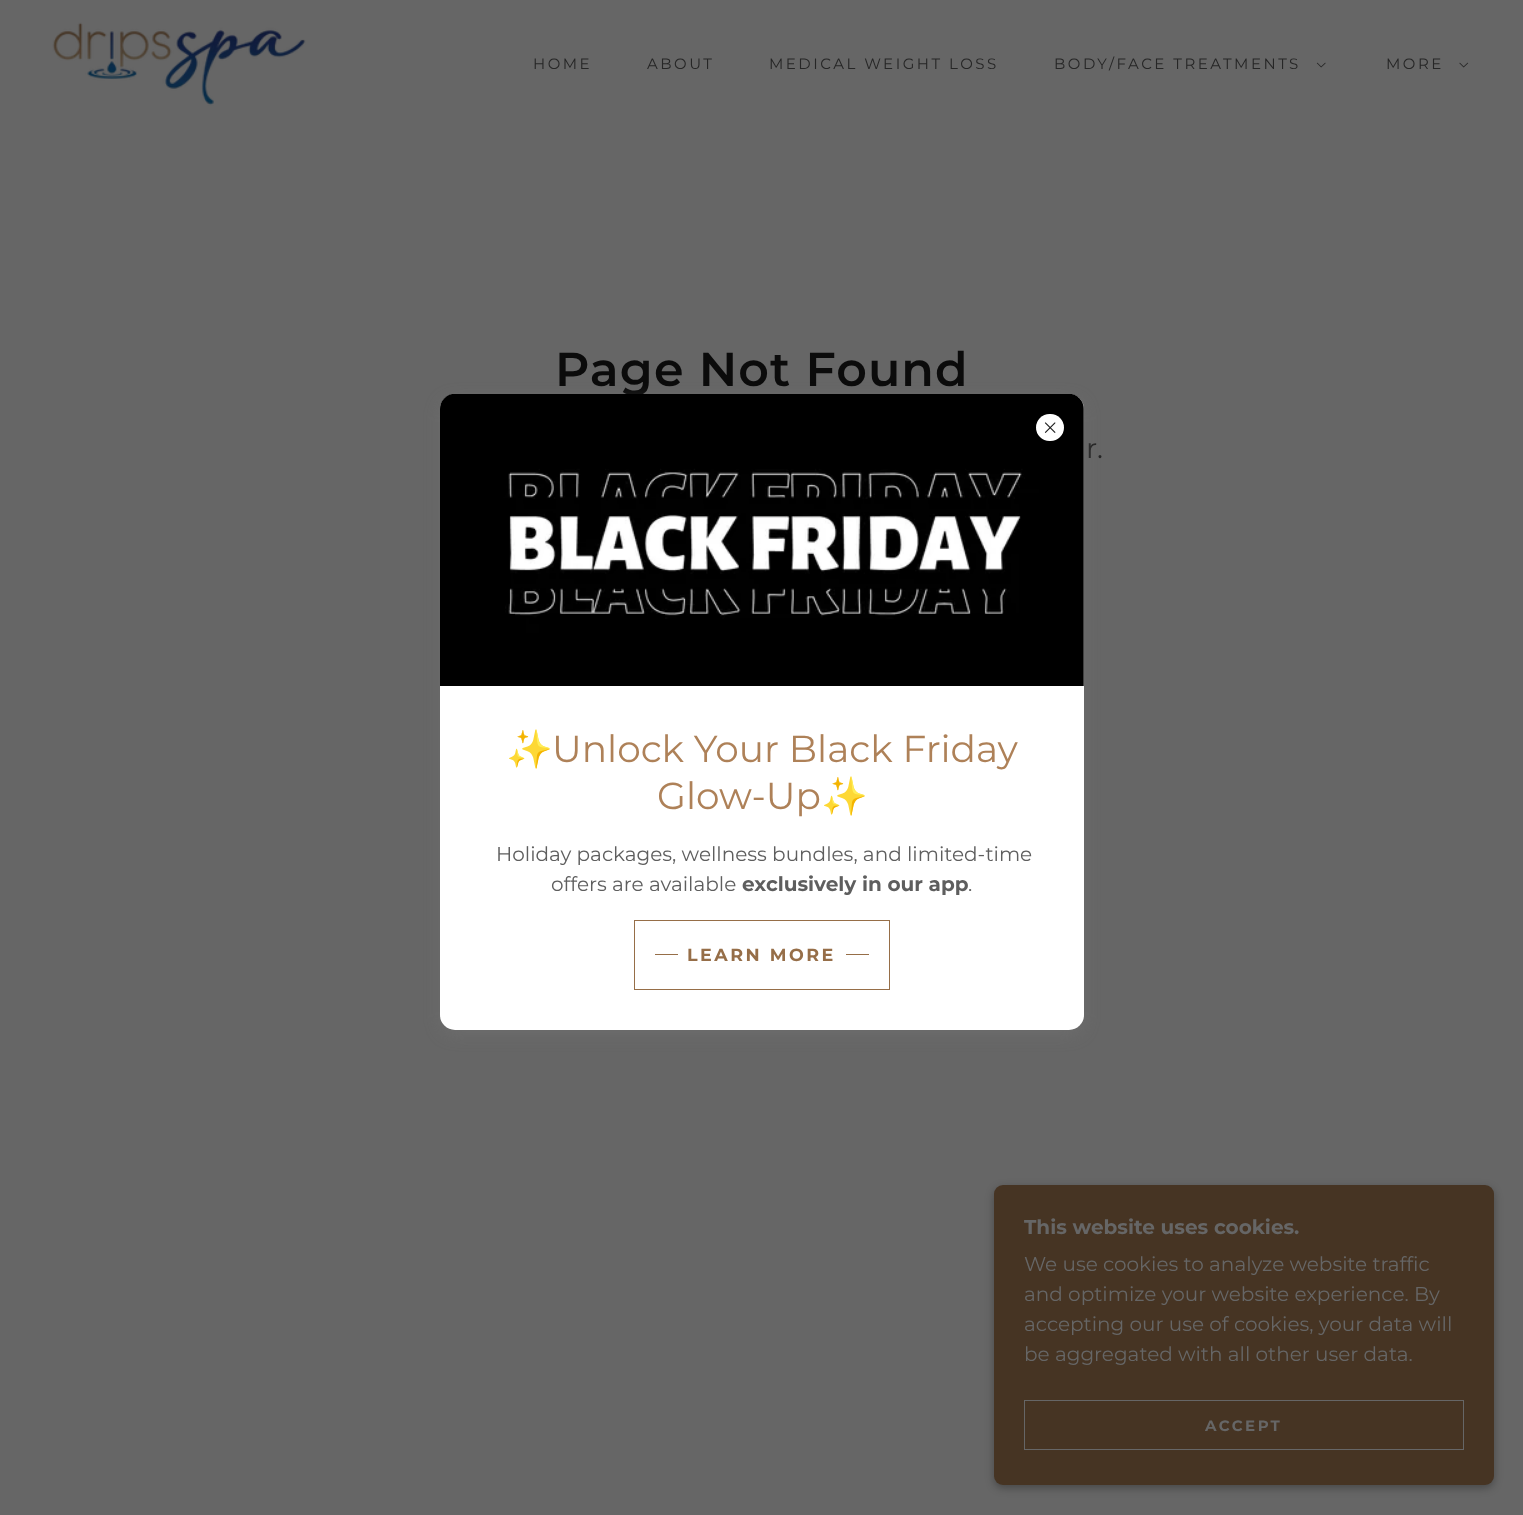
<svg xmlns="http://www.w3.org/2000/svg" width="1523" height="1515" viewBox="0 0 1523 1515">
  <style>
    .t1 { font: 15px Montserrat; letter-spacing: 2.5px; fill: #262626; }
    .t2 { font: 600 47.5px Montserrat; letter-spacing: 1.1px; fill: #0b0b0b; }
    .t3 { font: 28px Montserrat; fill: #262626; }
    .t4 { font: 37.5px Noto Color Emoji; fill: #ae8158; }
    .t5 { font: 37.5px Montserrat; fill: #ae8158; }
    .t6 { font: 20px Montserrat; fill: #5e5e5e; }
    .t7 { font: bold 20px Montserrat; fill: #5e5e5e; }
    .t8 { font: bold 17.5px Montserrat; letter-spacing: 2.5px; fill: #966e48; }
    .t9 { font: bold 20px Montserrat; fill: #666; }
    .t10 { font: 20px Montserrat; fill: #666; }
    .t11 { font: bold 15px Montserrat; letter-spacing: 2.5px; fill: #666; }
  </style>
  <rect width="100%" height="100%" fill="#666"/>
  <image x="52" y="22" width="254" height="84" href="images/1.png"/>
  <text x="533" y="69" class="t1">HOME</text>
  <text x="647" y="69" class="t1">ABOUT</text>
  <text x="769" y="69" class="t1">MEDICAL WEIGHT LOSS</text>
  <text x="1054" y="69" class="t1">BODY/FACE TREATMENTS</text>
  <image x="1316" y="62" width="10" height="6" href="images/2.png"/>
  <text x="1386" y="69" class="t1">MORE</text>
  <image x="1459" y="62" width="10" height="6" href="images/3.png"/>
  <text x="555" y="386" class="t2">Page Not Found</text>
  <text x="1086" y="458" class="t3">r.</text>
  <rect x="440" y="399" width="644" height="636" rx="15" fill="#75757566" filter="blur(7.5px)"/>
  <rect x="440" y="394" width="644" height="636" rx="15" fill="#fff"/>
  <image x="440" y="394" width="644" height="292" href="images/5.png"/>
  <rect x="1036" y="414" width="28" height="27" rx="13.5" fill="#fff"/>
  <image x="1044" y="422" width="12" height="11" href="images/4.png"/>
  <text x="506" y="762" class="t4">✨</text>
  <text x="552" y="762" class="t5">Unlock Your Black Friday</text>
  <text x="657" y="809" class="t5">Glow-Up</text>
  <text x="821" y="809" class="t4">✨</text>
  <text x="496" y="861" class="t6">Holiday packages, wellness bundles, and limited-time</text>
  <text x="551" y="891" class="t6">offers are available</text>
  <text x="742" y="891" class="t7">exclusively in our app</text>
  <text x="968" y="891" class="t6">.</text>
  <rect x="634.5" y="920.5" width="255" height="69" fill="none" stroke="#966e48"/>
  <rect x="655" y="954" width="23" height="1" fill="#966e48"/>
  <text x="687" y="961" class="t8">LEARN MORE</text>
  <rect x="846" y="954" width="23" height="1" fill="#966e48"/>
  <rect x="994" y="1188" width="500" height="300" rx="9" fill="#0000004d" filter="blur(4px)"/>
  <rect x="994" y="1185" width="500" height="300" rx="9" fill="#463423"/>
  <text x="1024" y="1234" class="t9">This website uses cookies.</text>
  <text x="1024" y="1271" class="t10">We use cookies to analyze website traffic</text>
  <text x="1024" y="1301" class="t10">and optimize your website experience. By</text>
  <text x="1024" y="1331" class="t10">accepting our use of cookies, your data will</text>
  <text x="1024" y="1361" class="t10">be aggregated with all other user data.</text>
  <rect x="1024.5" y="1400.5" width="439" height="49" fill="none" stroke="#666"/>
  <text x="1205" y="1431" class="t11">ACCEPT</text>
</svg>
